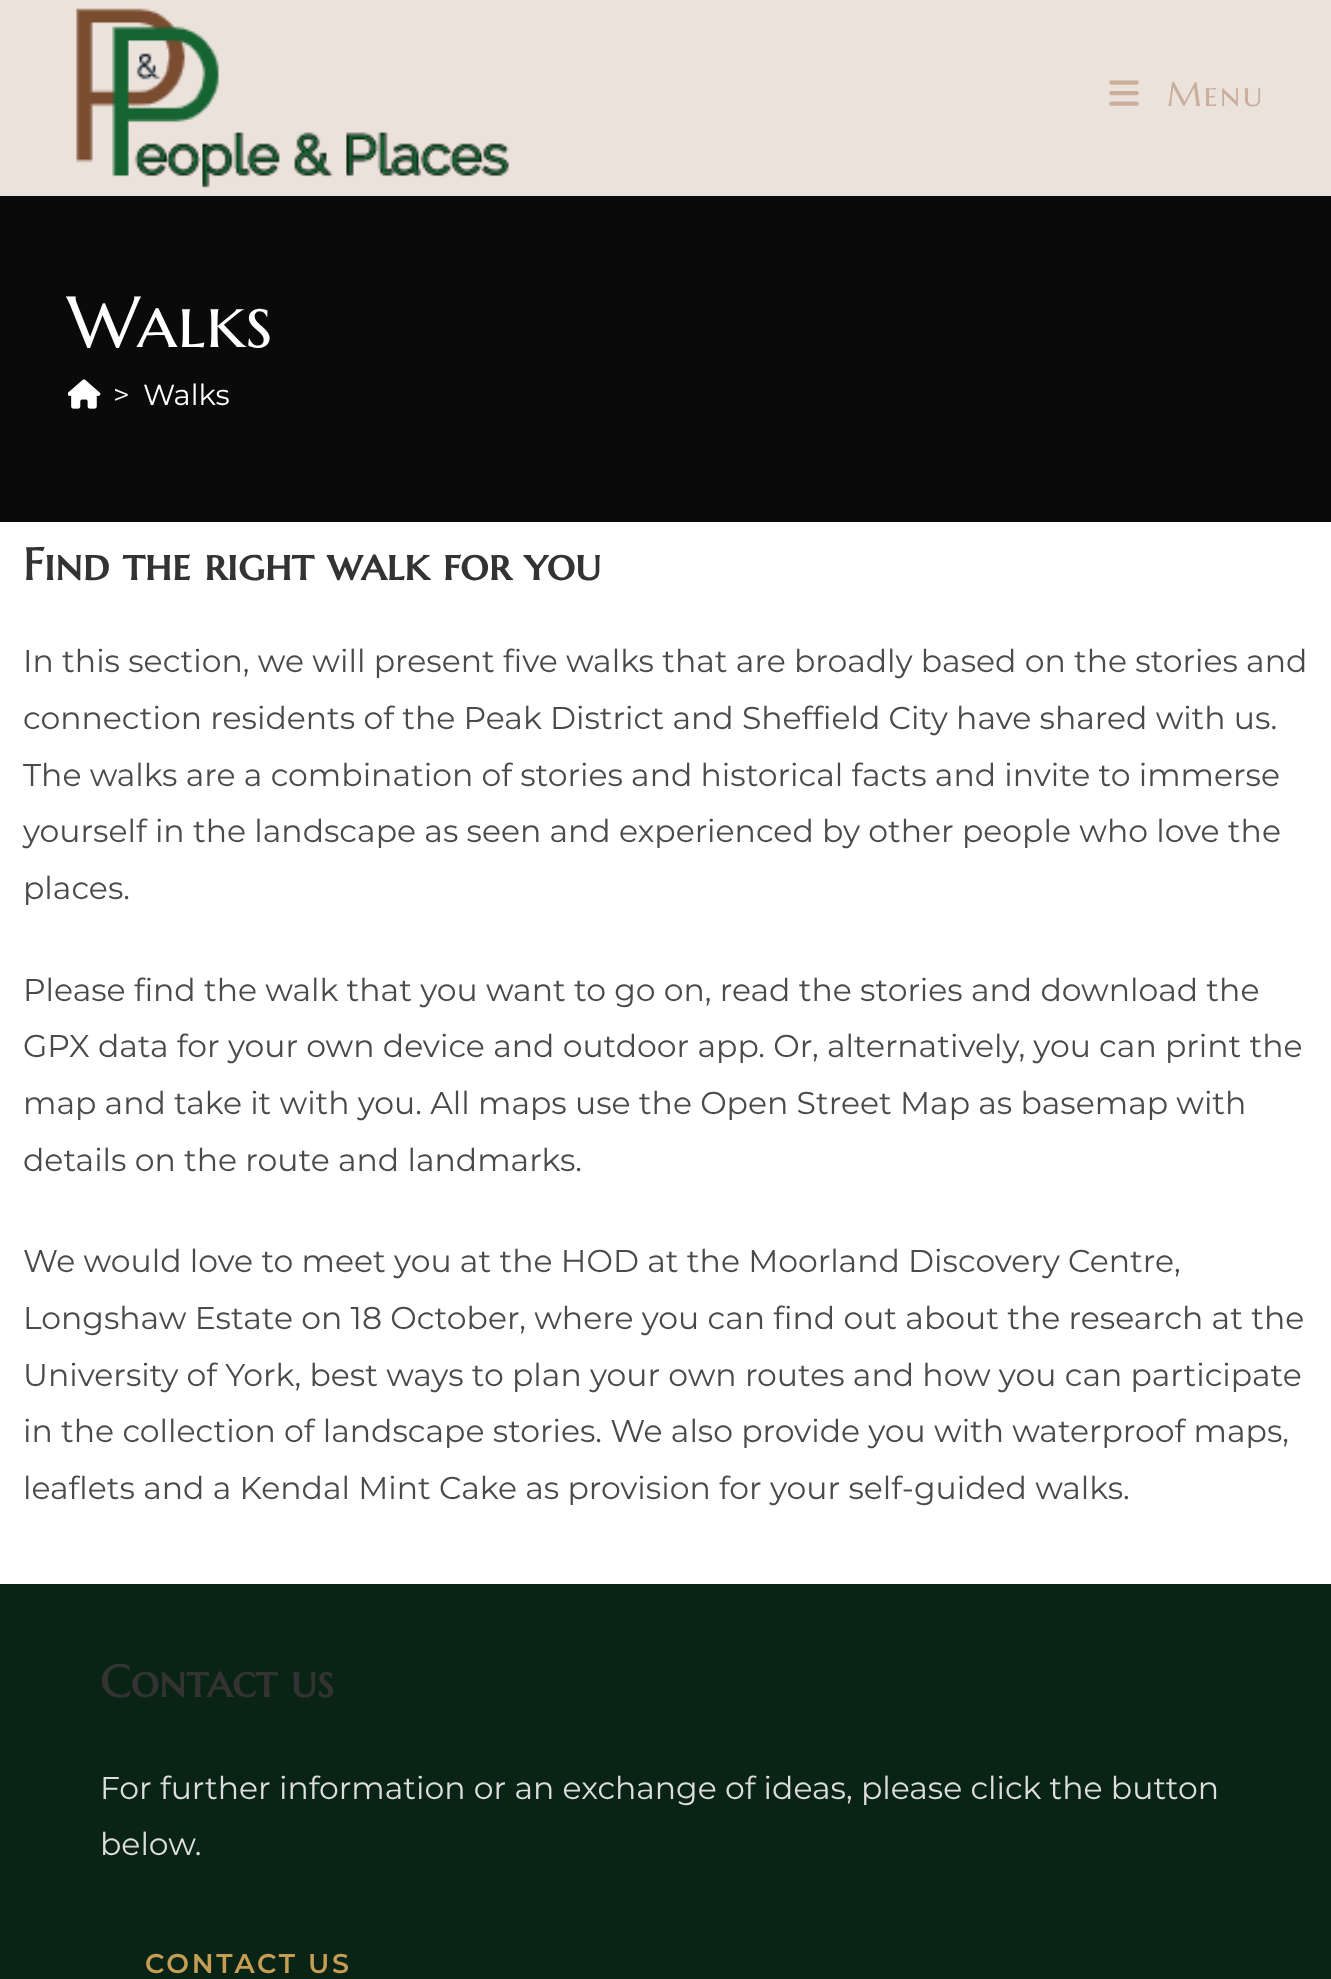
<svg xmlns="http://www.w3.org/2000/svg" width="1331" height="1979" viewBox="0 0 1331 1979">
  <style>
    .t1 { font: 34px Marcellus SC; letter-spacing: 2px; fill: #caad9a; }
    .t2 { font: 72px Marcellus SC; fill: #fff; }
    .t3 { font: 29px Montserrat; fill: #fff; }
    .t4 { font: bold 45px Marcellus SC; fill: #333; }
    .t5 { font: 31.5px Montserrat; fill: #4a4a4a; }
    .t6 { font: 31.5px Montserrat; fill: #ddd; }
    .t7 { font: 600 27px Montserrat; letter-spacing: 2.75px; fill: #c59d55; }
  </style>
  <rect width="100%" height="100%" fill="#fff"/>
  <rect x="0" y="0" width="1331" height="196" fill="#ece2dc"/>
  <image x="76" y="8" width="434" height="180" href="images/1.png"/>
  <image x="1109" y="80" width="30" height="26" href="images/2.png"/>
  <text x="1167" y="106" class="t1">Menu</text>
  <rect x="0" y="196" width="1331" height="326" fill="#0a0a0a"/>
  <text x="67" y="347" class="t2">Walks</text>
  <image x="68" y="379" width="33" height="30" href="images/3.png"/>
  <text x="113" y="405" class="t3">&gt;</text>
  <text x="143" y="405" class="t3">Walks</text>
  <text x="23" y="580" class="t4">Find the right walk for you</text>
  <text x="23" y="672" class="t5">In this section, we will present five walks that are broadly based on the stories and</text>
  <text x="23" y="729" class="t5">connection residents of the Peak District and Sheffield City have shared with us.</text>
  <text x="23" y="786" class="t5">The walks are a combination of stories and historical facts and invite to immerse</text>
  <text x="23" y="842" class="t5">yourself in the landscape as seen and experienced by other people who love the</text>
  <text x="23" y="899" class="t5">places.</text>
  <text x="23" y="1001" class="t5">Please find the walk that you want to go on, read the stories and download the</text>
  <text x="23" y="1057" class="t5">GPX data for your own device and outdoor app. Or, alternatively, you can print the</text>
  <text x="23" y="1114" class="t5">map and take it with you. All maps use the Open Street Map as basemap with</text>
  <text x="23" y="1171" class="t5">details on the route and landmarks.</text>
  <text x="23" y="1272" class="t5">We would love to meet you at the HOD at the Moorland Discovery Centre,</text>
  <text x="23" y="1329" class="t5">Longshaw Estate on 18 October, where you can find out about the research at the</text>
  <text x="23" y="1386" class="t5">University of York, best ways to plan your own routes and how you can participate</text>
  <text x="23" y="1442" class="t5">in the collection of landscape stories. We also provide you with waterproof maps,</text>
  <text x="23" y="1499" class="t5">leaflets and a Kendal Mint Cake as provision for your self-guided walks.</text>
  <rect x="0" y="1584" width="1331" height="395" fill="#092415"/>
  <text x="100" y="1697" class="t4">Contact us</text>
  <text x="100" y="1799" class="t6">For further information or an exchange of ideas, please click the button</text>
  <text x="100" y="1855" class="t6">below.</text>
  <text x="145" y="1973" class="t7">CONTACT US</text>
</svg>
